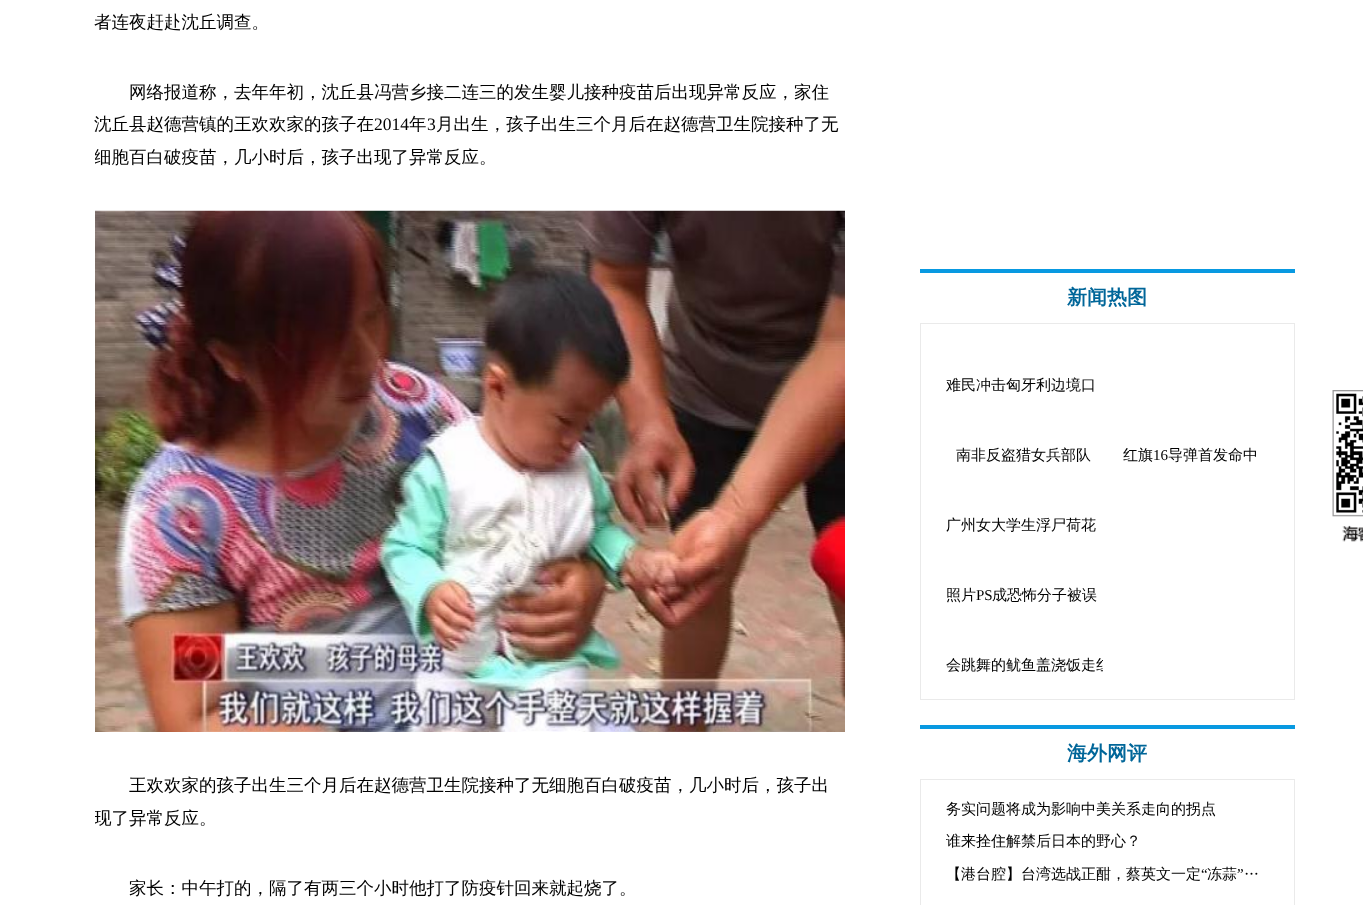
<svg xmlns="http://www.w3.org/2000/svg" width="1363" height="905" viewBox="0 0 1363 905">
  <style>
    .t1 { font: 500 17.5px WenQuanYi Zen Hei; fill: #000; }
    .t2 { font: 17.5px Liberation Serif; fill: #000; }
    .t3 { font: bold 20px WenQuanYi Zen Hei; fill: #069; }
    .t4 { font: 500 15px WenQuanYi Zen Hei; fill: #000; }
    .t5 { font: 15px Liberation Serif; fill: #000; }
  </style>
  <defs>
    <clipPath id="clip1"><rect x="95" y="0" width="750" height="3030"/></clipPath>
    <clipPath id="clip2"><rect x="946" y="649" width="157" height="32"/></clipPath>
  </defs>
  <rect width="100%" height="100%" fill="#fff"/>
  <text x="94" y="28" class="t1">者连夜赶赴沈丘调查。</text>
  <text x="129" y="98" class="t1">网络报道称，去年年初，沈丘县冯营乡接二连三的发生婴儿接种疫苗后出现异常反应，家住</text>
  <text x="94" y="130" class="t1">沈丘县赵德营镇的王欢欢家的孩子在</text>
  <text x="374" y="130" class="t2">2014</text>
  <text x="409" y="130" class="t1">年</text>
  <text x="427" y="130" class="t2">3</text>
  <text x="436" y="130" class="t1">月出生，孩子出生三个月后在赵德营卫生院接种了无</text>
  <g clip-path="url(#clip1)">
    <text x="94" y="163" class="t1">细胞百白破疫苗，几小时后，孩子出现了异常反应。</text>
  </g>
  <image x="95" y="210" width="750" height="522" href="images/1.png"/>
  <text x="129" y="791" class="t1">王欢欢家的孩子出生三个月后在赵德营卫生院接种了无细胞百白破疫苗，几小时后，孩子出</text>
  <g clip-path="url(#clip1)">
    <text x="94" y="824" class="t1">现了异常反应。</text>
  </g>
  <text x="129" y="894" class="t1">家长：中午打的，隔了有两三个小时他打了防疫针回来就起烧了。</text>
  <rect x="920" y="269" width="375" height="4" fill="#0899e1"/>
  <text x="1067" y="304" class="t3">新闻热图</text>
  <rect x="920.5" y="323.5" width="374" height="376" fill="none" stroke="#eaeaea"/>
  <text x="946" y="390" class="t4">难民冲击匈牙利边境口</text>
  <text x="956" y="460" class="t4">南非反盗猎女兵部队</text>
  <text x="1123" y="460" class="t4">红旗</text>
  <text x="1153" y="460" class="t5">16</text>
  <text x="1168" y="460" class="t4">导弹首发命中</text>
  <text x="946" y="530" class="t4">广州女大学生浮尸荷花</text>
  <text x="946" y="600" class="t4">照片</text>
  <text x="976" y="600" class="t5">PS</text>
  <text x="992" y="600" class="t4">成恐怖分子被误</text>
  <g clip-path="url(#clip2)">
    <text x="946" y="670" class="t4">会跳舞的鱿鱼盖浇饭走红</text>
  </g>
  <rect x="920" y="725" width="375" height="4" fill="#0899e1"/>
  <text x="1067" y="760" class="t3">海外网评</text>
  <rect x="920.5" y="779.5" width="374" height="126" fill="none" stroke="#eaeaea"/>
  <text x="946" y="814" class="t4">务实问题将成为影响中美关系走向的拐点</text>
  <text x="946" y="846" class="t4">谁来拴住解禁后日本的野心？</text>
  <text x="946" y="879" class="t4">【港台腔】台湾选战正酣，蔡英文一定</text>
  <text x="1201" y="879" class="t5">“</text>
  <text x="1207" y="879" class="t4">冻蒜</text>
  <text x="1237" y="879" class="t5">”</text>
  <text x="1244" y="879" class="t4">…</text>
  <image x="1332" y="390" width="31" height="152" href="images/2.png"/>
</svg>
